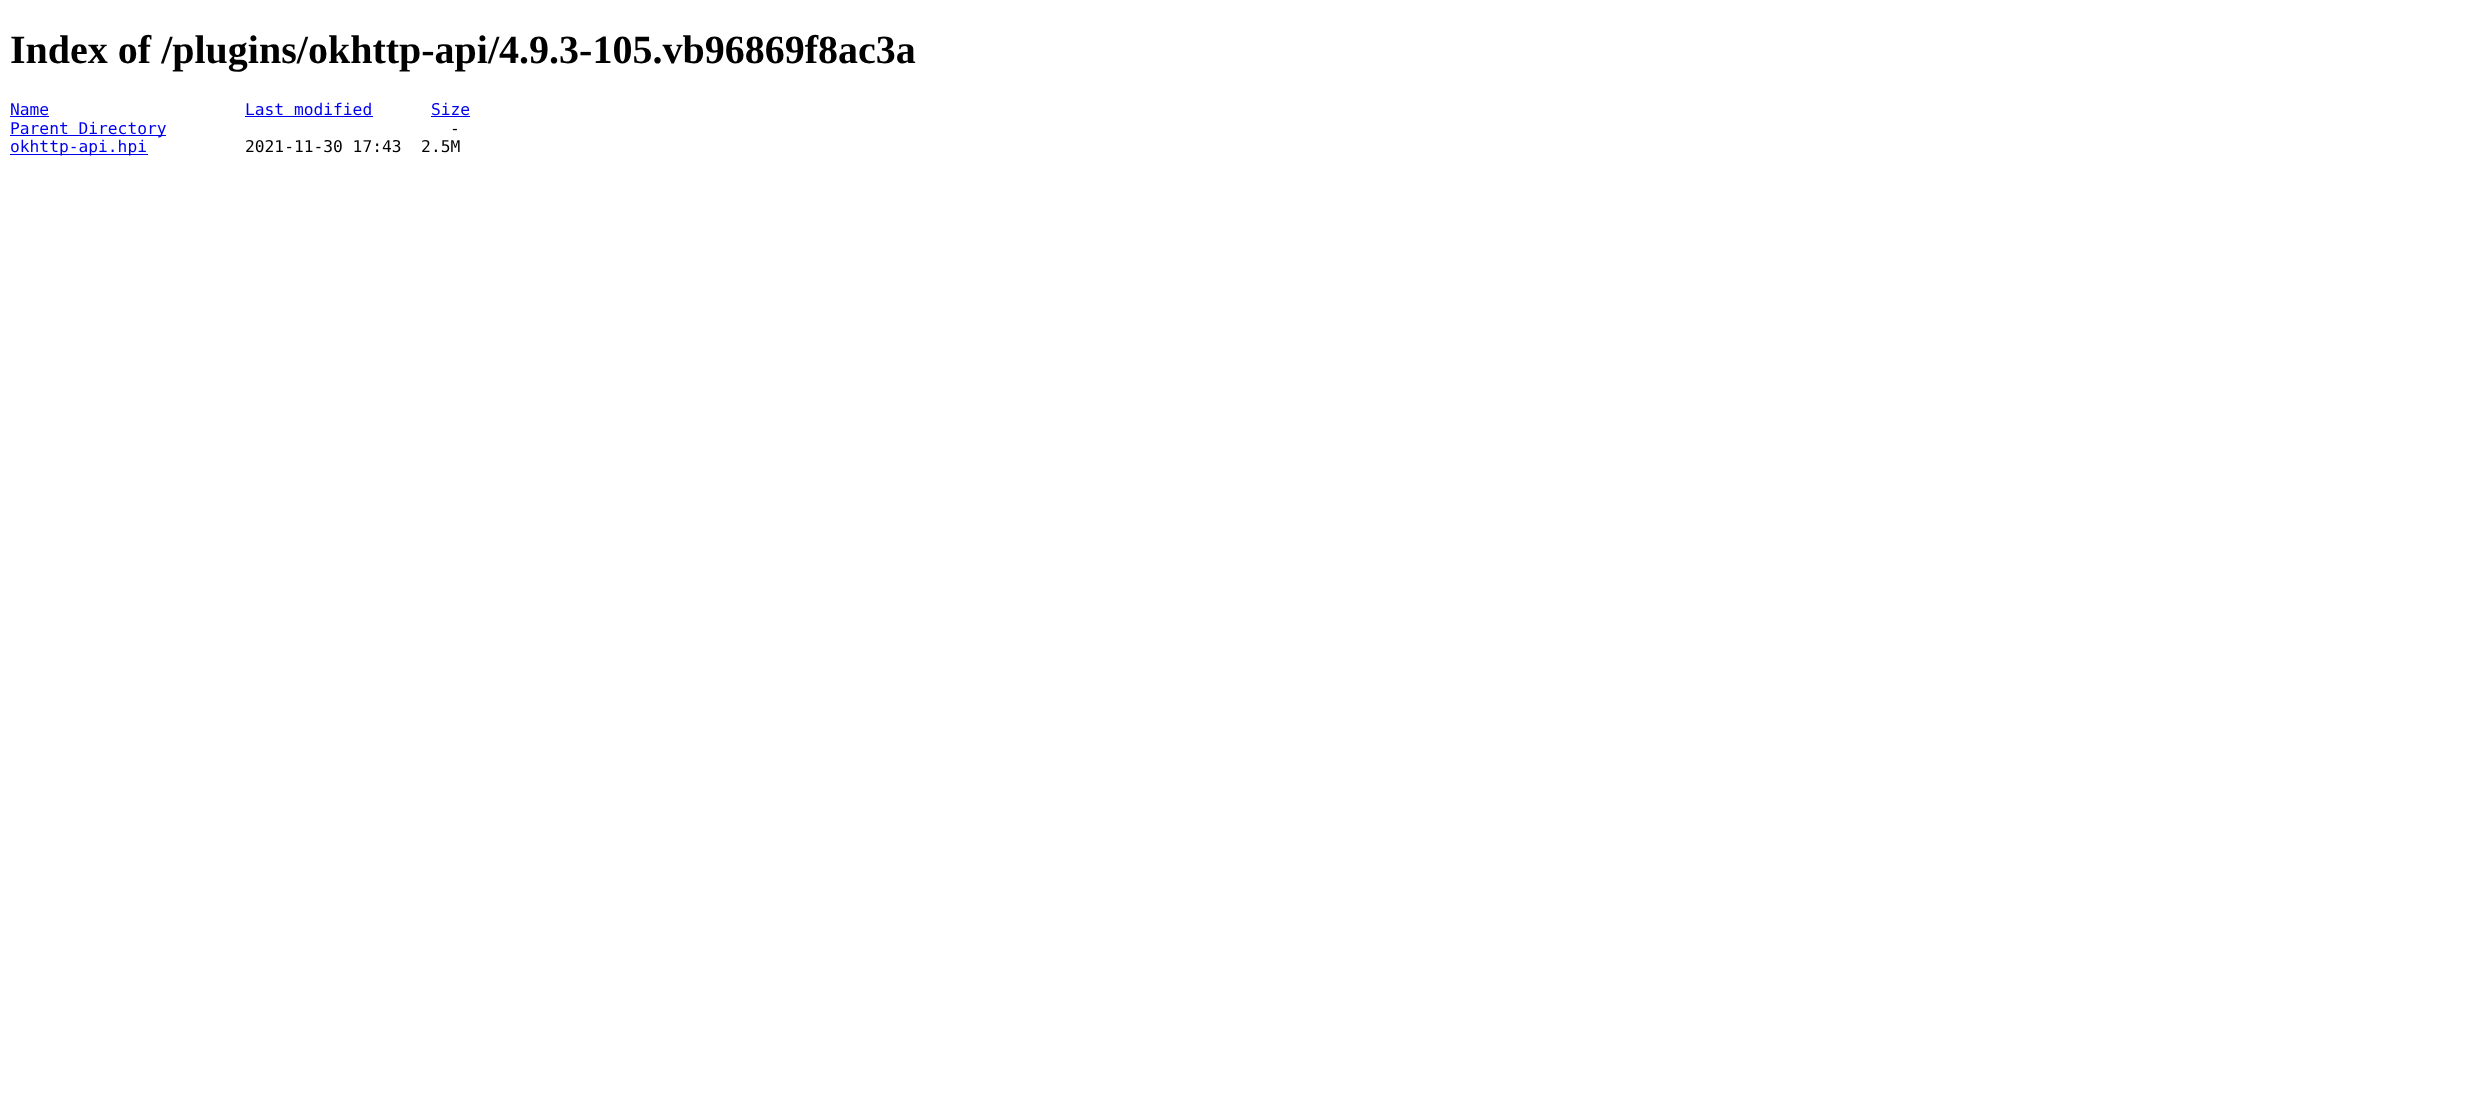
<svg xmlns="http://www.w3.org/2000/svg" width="2490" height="1118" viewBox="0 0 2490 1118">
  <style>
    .t1 { font: bold 40px Liberation Serif; fill: #000; }
    .t2 { font: 16.25px DejaVu Sans Mono; fill: #00e; }
    .t3 { font: 16.25px DejaVu Sans Mono; fill: #000; }
  </style>
  <rect width="100%" height="100%" fill="#fff"/>
  <text x="10" y="63" class="t1">Index of /plugins/okhttp-api/4.9.3-105.vb96869f8ac3a</text>
  <text x="10" y="115" class="t2">Name</text>
  <rect x="10" y="116" width="39" height="1" fill="#00e"/>
  <text x="245" y="115" class="t2">Last modified</text>
  <rect x="245" y="116" width="128" height="1" fill="#00e"/>
  <text x="431" y="115" class="t2">Size</text>
  <rect x="431" y="116" width="39" height="1" fill="#00e"/>
  <rect x="10" y="135" width="156" height="1" fill="#00e"/>
  <text x="10" y="134" class="t2">Parent Directory</text>
  <text x="450" y="134" class="t3">-</text>
  <rect x="10" y="154" width="138" height="1" fill="#00e"/>
  <text x="10" y="152" class="t2">okhttp-api.hpi</text>
  <text x="245" y="152" class="t3" xml:space="preserve">2021-11-30 17:43  2.5M</text>
</svg>
